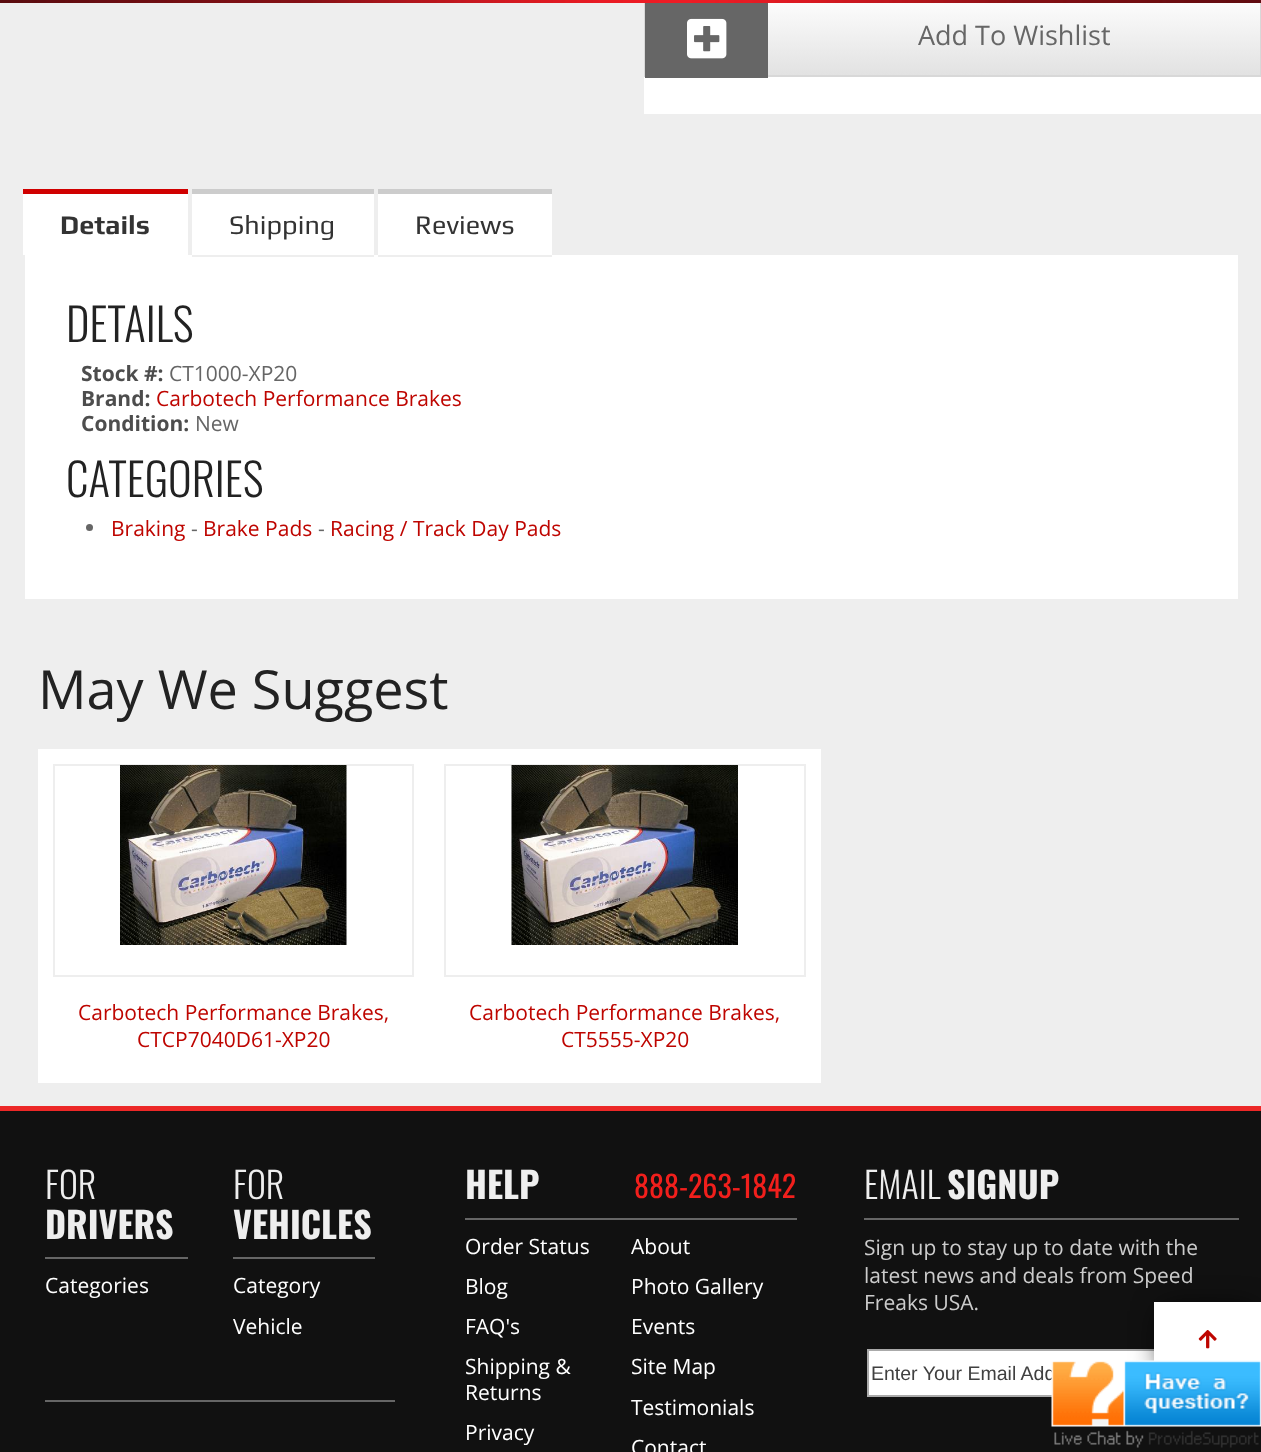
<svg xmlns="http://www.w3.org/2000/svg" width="1261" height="1452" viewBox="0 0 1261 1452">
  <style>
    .t1 { font: 27px Open Sans; fill: #666; }
    .t2 { font: bold 27px Play; fill: #333; }
    .t3 { font: 27px Play; fill: #333; }
    .t4 { font: 300 45px Oswald; fill: #222; }
    .t5 { font: bold 21px Open Sans; fill: #4d4d4d; }
    .t6 { font: 21px Open Sans; fill: #666; }
    .t7 { font: 21px Open Sans; fill: #be0500; }
    .t8 { font: 54px Open Sans; fill: #222; }
    .t9 { font: 300 36px Oswald; fill: #eee; }
    .t10 { font: bold 36px Oswald; fill: #eee; }
    .t11 { font: 21px Open Sans; fill: #fff; }
    .t12 { font: 30px Oswald; fill: #f11f1c; }
    .t13 { font: 21px Open Sans; fill: #ccc; }
    .t14 { font: 19.5px Liberation Sans; fill: #404040; }
  </style>
  <defs>
    <linearGradient id="g1" gradientUnits="userSpaceOnUse" x1="953" y1="-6" x2="953" y2="75"><stop offset="0" stop-color="#fff"/><stop offset="1" stop-color="#e2e2e2"/></linearGradient>
  </defs>
  <rect width="100%" height="100%" fill="#eee"/>
  <rect x="768" y="3" width="492" height="72" fill="url(#g1)"/>
  <rect x="645" y="-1" width="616" height="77" fill="none" stroke="#d8d8d8" stroke-width="2"/>
  <image x="0" y="0" width="1261" height="3" href="images/1.png"/>
  <rect x="644" y="77" width="617" height="37" fill="#fff"/>
  <rect x="645" y="3" width="123" height="75" fill="#666"/>
  <image x="687" y="18" width="40" height="41" href="images/2.png"/>
  <text x="918" y="45" class="t1">Add To Wishlist</text>
  <rect x="23" y="194" width="165" height="61" fill="#fff"/>
  <rect x="23" y="189" width="165" height="5" fill="#d00000"/>
  <text x="60" y="234" class="t2">Details</text>
  <rect x="192" y="194" width="182" height="61" fill="#fff"/>
  <rect x="192" y="189" width="182" height="5" fill="#ccc"/>
  <rect x="25" y="255" width="1213" height="344" fill="#fff"/>
  <rect x="192" y="255" width="182" height="2" fill="#eee"/>
  <text x="229" y="234" class="t3">Shipping</text>
  <rect x="378" y="194" width="174" height="61" fill="#fff"/>
  <rect x="378" y="189" width="174" height="5" fill="#ccc"/>
  <rect x="378" y="255" width="174" height="2" fill="#eee"/>
  <text x="415" y="234" class="t3">Reviews</text>
  <text x="66" y="342" class="t4">DETAILS</text>
  <text x="81" y="381" class="t5">Stock #:</text>
  <text x="169" y="381" class="t6">CT1000-XP20</text>
  <text x="81" y="406" class="t5">Brand:</text>
  <text x="156" y="406" class="t7">Carbotech Performance Brakes</text>
  <text x="81" y="431" class="t5">Condition:</text>
  <text x="195" y="431" class="t6">New</text>
  <text x="66" y="497" class="t4">CATEGORIES</text>
  <circle cx="89.5" cy="527.5" r="3.5" fill="#666"/>
  <text x="111" y="536" class="t7">Braking</text>
  <text x="191" y="536" class="t6">-</text>
  <text x="203" y="536" class="t7">Brake Pads</text>
  <text x="318" y="536" class="t6">-</text>
  <text x="330" y="536" class="t7">Racing / Track Day Pads</text>
  <text x="38" y="709" class="t8">May We Suggest</text>
  <rect x="38" y="749" width="783" height="334" fill="#fff"/>
  <rect x="54" y="765" width="359" height="211" fill="none" stroke="#eee" stroke-width="2"/>
  <image x="120" y="765" width="227" height="180" href="images/3.png"/>
  <text x="78" y="1020" class="t7">Carbotech Performance Brakes,</text>
  <text x="137" y="1047" class="t7">CTCP7040D61-XP20</text>
  <rect x="445" y="765" width="360" height="211" fill="none" stroke="#eee" stroke-width="2"/>
  <image x="511" y="765" width="227" height="180" href="images/4.png"/>
  <text x="469" y="1020" class="t7">Carbotech Performance Brakes,</text>
  <text x="561" y="1047" class="t7">CT5555-XP20</text>
  <rect x="0" y="1111" width="1261" height="341" fill="#111"/>
  <rect x="0" y="1106" width="1261" height="5" fill="#ec2827"/>
  <rect x="45" y="1257" width="143" height="2" fill="#666"/>
  <text x="45" y="1199" class="t9">FOR</text>
  <text x="45" y="1239" class="t10">DRIVERS</text>
  <text x="45" y="1293" class="t11">Categories</text>
  <rect x="233" y="1257" width="142" height="2" fill="#666"/>
  <text x="233" y="1199" class="t9">FOR</text>
  <text x="233" y="1239" class="t10">VEHICLES</text>
  <text x="233" y="1293" class="t11">Category</text>
  <text x="233" y="1334" class="t11">Vehicle</text>
  <rect x="45" y="1400" width="350" height="2" fill="#666"/>
  <rect x="465" y="1218" width="332" height="2" fill="#666"/>
  <text x="465" y="1199" class="t10">HELP</text>
  <text x="634" y="1198" class="t12">888-263-1842</text>
  <text x="465" y="1254" class="t11">Order Status</text>
  <text x="465" y="1294" class="t11">Blog</text>
  <text x="465" y="1334" class="t11">FAQ's</text>
  <text x="465" y="1374" class="t11">Shipping &amp;</text>
  <text x="465" y="1400" class="t11">Returns</text>
  <text x="465" y="1440" class="t11">Privacy</text>
  <text x="631" y="1254" class="t11">About</text>
  <text x="631" y="1294" class="t11">Photo Gallery</text>
  <text x="631" y="1334" class="t11">Events</text>
  <text x="631" y="1374" class="t11">Site Map</text>
  <text x="631" y="1415" class="t11">Testimonials</text>
  <text x="631" y="1455" class="t11">Contact</text>
  <rect x="864" y="1218" width="375" height="2" fill="#666"/>
  <text x="864" y="1199" class="t9">EMAIL</text>
  <text x="947" y="1199" class="t10">SIGNUP</text>
  <text x="864" y="1255" class="t13">Sign up to stay up to date with the</text>
  <text x="864" y="1283" class="t13">latest news and deals from Speed</text>
  <text x="864" y="1310" class="t13">Freaks USA.</text>
  <rect x="869" y="1351" width="285" height="44" fill="#fff"/>
  <rect x="868" y="1350" width="294" height="46" fill="none" stroke="#aaa" stroke-width="2"/>
  <text x="871" y="1380" class="t14">Enter Your Email Add</text>
  <rect x="1163" y="1311" width="90" height="57" fill="#000" filter="blur(15px)"/>
  <rect x="1154" y="1302" width="107" height="59" fill="#fff"/>
  <image x="1198" y="1330" width="19" height="19" href="images/5.png"/>
  <image x="1051" y="1360" width="210" height="67" href="images/6.png"/>
  <image x="1054" y="1430" width="205" height="18" href="images/7.png"/>
</svg>
